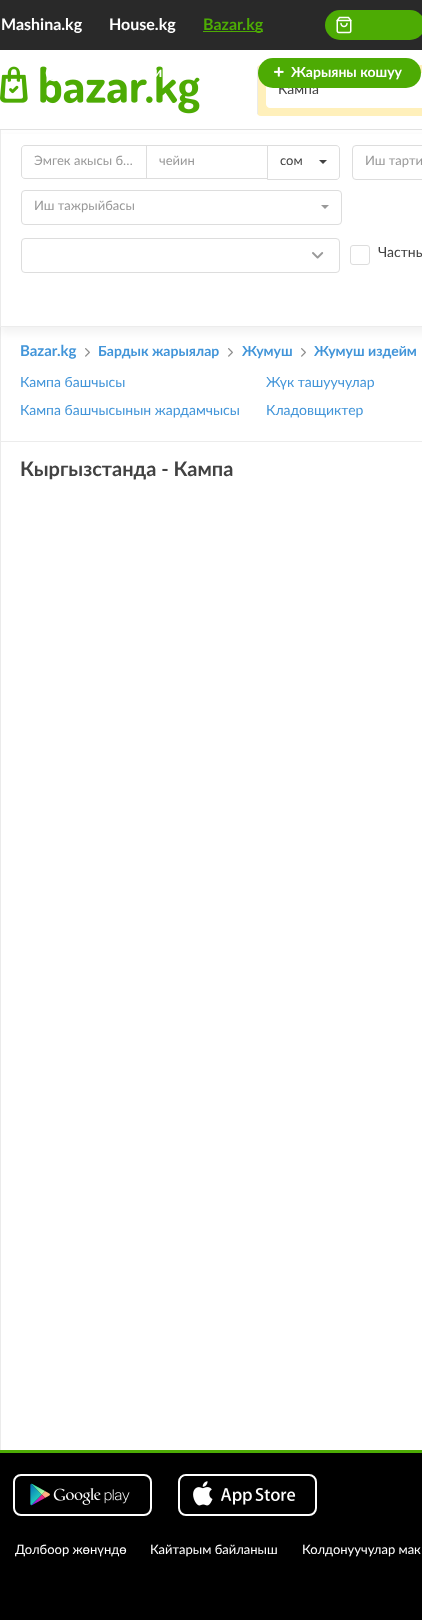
<svg xmlns="http://www.w3.org/2000/svg" width="422" height="1620" viewBox="0 0 422 1620">
  <style>
    .t1 { font: bold 16px Lato; fill: #fff; }
    .t2 { font: bold 16px Lato; fill: #4dab04; }
    .t3 { font: bold 14px Lato; fill: #fff; }
    .t4 { font: 14px Lato; fill: #424242; }
    .t5 { font: 13px Lato; fill: #999; }
    .t6 { font: 13px Lato; fill: #424242; }
    .t7 { font: bold 15px Lato; fill: #4295d9; }
    .t8 { font: bold 14px Lato; fill: #4295d9; }
    .t9 { font: 14px Lato; fill: #4295d9; }
    .t10 { font: bold 20px Lato; fill: #424242; }
    .t11 { font: 13px Lato; fill: #fff; }
  </style>
  <rect width="100%" height="100%" fill="#fff"/>
  <rect x="0" y="0" width="422" height="50" fill="#292929"/>
  <text x="1" y="30" class="t1">Mashina.kg</text>
  <text x="109" y="30" class="t1">House.kg</text>
  <rect x="203" y="31" width="60" height="1" fill="#4dab04"/>
  <text x="203" y="30" class="t2">Bazar.kg</text>
  <rect x="325" y="10" width="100" height="30" rx="15" fill="#4dab04"/>
  <image x="336" y="16" width="16" height="18" href="images/1.png"/>
  <image x="0" y="66" width="200" height="48" href="images/4.png"/>
  <image x="45" y="69" width="12" height="13" href="images/2.png"/>
  <text x="154" y="77" class="t3">и</text>
  <rect x="257" y="65" width="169" height="51" rx="4" fill="#fff0bb"/>
  <path d="M270 73H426V108H270C268 108 266 106 266 104V77C266 75 268 73 270 73Z" fill="#fff"/>
  <text x="278" y="94" class="t4">Кампа</text>
  <rect x="258" y="58" width="163" height="30" rx="15" fill="#4dab04"/>
  <image x="274" y="67" width="10" height="10" href="images/3.png"/>
  <text x="291" y="77" class="t3">Жарыяны кошуу</text>
  <rect x="0" y="327" width="1" height="1123" fill="#ebebeb"/>
  <rect x="0" y="137" width="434" height="196" fill="#0000000d" filter="blur(4px)"/>
  <rect x="0" y="129" width="422" height="1" fill="#e1e1e1"/>
  <rect x="257" y="67" width="1" height="47" fill="#ebebeb"/>
  <rect x="1" y="134" width="421" height="192" fill="#fff"/>
  <rect x="0" y="130" width="1" height="196" fill="#ebebeb"/>
  <path d="M25 145.5H146.5V178.5H25C23 178.5 21.5 177 21.5 175V149C21.5 147 23 145.5 25 145.5Z" fill="none" stroke="#ddd"/>
  <text x="34" y="165" class="t5">Эмгек акысы б…</text>
  <rect x="146.5" y="145.5" width="121" height="33" fill="none" stroke="#ddd"/>
  <text x="159" y="165" class="t5">чейин</text>
  <path d="M267.5 145.5H336C338 145.5 339.5 147 339.5 149V176C339.5 178 338 179.5 336 179.5H267.5Z" fill="#fff" stroke="#ddd"/>
  <text x="280" y="165" class="t6">сом</text>
  <path d="M319 160H327L323 164Z" fill="#424242"/>
  <rect x="352.5" y="145.5" width="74" height="34" rx="3.5" fill="none" stroke="#ddd"/>
  <text x="365" y="165" class="t5">Иш тарти</text>
  <rect x="21.5" y="190.5" width="320" height="34" rx="3.5" fill="none" stroke="#ddd"/>
  <text x="34" y="210" class="t5">Иш тажрыйбасы</text>
  <path d="M321 205H329L325 209Z" fill="#999"/>
  <image x="312" y="252" width="12" height="7" href="images/5.png"/>
  <rect x="21.5" y="238.5" width="318" height="34" rx="3.5" fill="none" stroke="#ddd"/>
  <rect x="350.5" y="245.5" width="19" height="19" rx="2.5" fill="none" stroke="#ddd"/>
  <text x="378" y="257" class="t4">Частны</text>
  <rect x="0" y="326" width="422" height="1" fill="#ececec"/>
  <rect x="0" y="441" width="422" height="1" fill="#ececec"/>
  <text x="20" y="356" class="t7">Bazar.kg</text>
  <image x="85" y="348" width="5" height="9" href="images/6.png"/>
  <text x="98" y="356" class="t8">Бардык жарыялар</text>
  <image x="228" y="348" width="5" height="9" href="images/6.png"/>
  <text x="242" y="356" class="t8">Жумуш</text>
  <image x="301" y="348" width="5" height="9" href="images/6.png"/>
  <text x="314" y="356" class="t8">Жумуш издейм</text>
  <text x="20" y="387" class="t9">Кампа башчысы</text>
  <text x="20" y="415" class="t9">Кампа башчысынын жардамчысы</text>
  <text x="266" y="387" class="t9">Жүк ташуучулар</text>
  <text x="266" y="415" class="t9">Кладовщиктер</text>
  <text x="20" y="476" class="t10">Кыргызстанда - Кампа</text>
  <rect x="0" y="1453" width="422" height="167" fill="#000"/>
  <rect x="0" y="1450" width="422" height="3" fill="#4dab04"/>
  <rect x="14" y="1475" width="137" height="40" rx="7" fill="none" stroke="#fff" stroke-width="2"/>
  <image x="30" y="1483" width="100" height="23" href="images/7.png"/>
  <rect x="179" y="1475" width="137" height="40" rx="7" fill="none" stroke="#fff" stroke-width="2"/>
  <image x="181" y="1476" width="129" height="38" href="images/8.png"/>
  <text x="15" y="1554" class="t11">Долбоор жөнүндө</text>
  <text x="150" y="1554" class="t11">Кайтарым байланыш</text>
  <text x="302" y="1554" class="t11">Колдонуучулар мак</text>
</svg>
